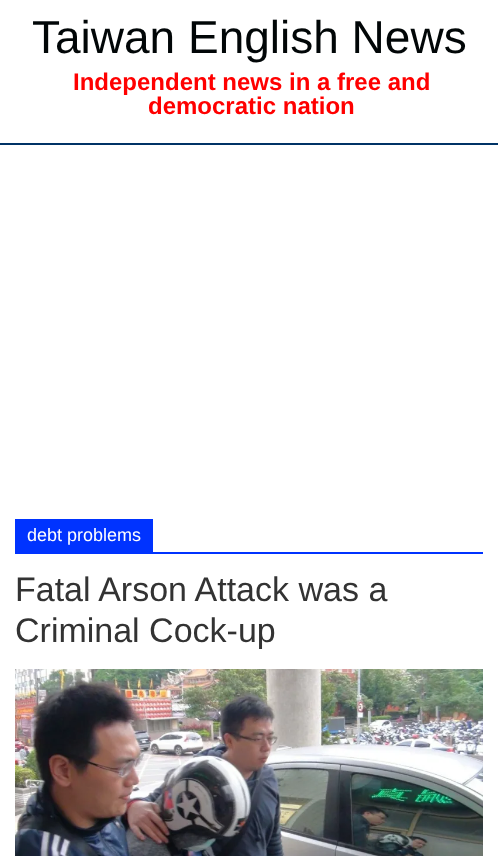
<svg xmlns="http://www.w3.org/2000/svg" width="498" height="856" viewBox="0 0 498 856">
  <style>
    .t1 { font: 46px Liberation Sans; fill: #010607; }
    .t2 { font: bold 24px Liberation Sans; fill: #f00; }
    .t3 { font: 18px Liberation Sans; fill: #fff; }
    .t4 { font: 34px Liberation Sans; fill: #333; }
  </style>
  <rect width="100%" height="100%" fill="#fff"/>
  <text x="32" y="53" class="t1">Taiwan English News</text>
  <text x="73" y="90" class="t2">Independent news in a free and</text>
  <text x="148" y="114" class="t2">democratic nation</text>
  <rect x="0" y="143" width="498" height="2" fill="#036"/>
  <rect x="15" y="552" width="468" height="2" fill="#03f"/>
  <rect x="15" y="519" width="138" height="33" fill="#03f"/>
  <text x="27" y="541" class="t3">debt problems</text>
  <text x="15" y="601" class="t4">Fatal Arson Attack was a</text>
  <text x="15" y="642" class="t4">Criminal Cock-up</text>
  <image x="15" y="669" width="468" height="187" href="images/1.png"/>
</svg>
